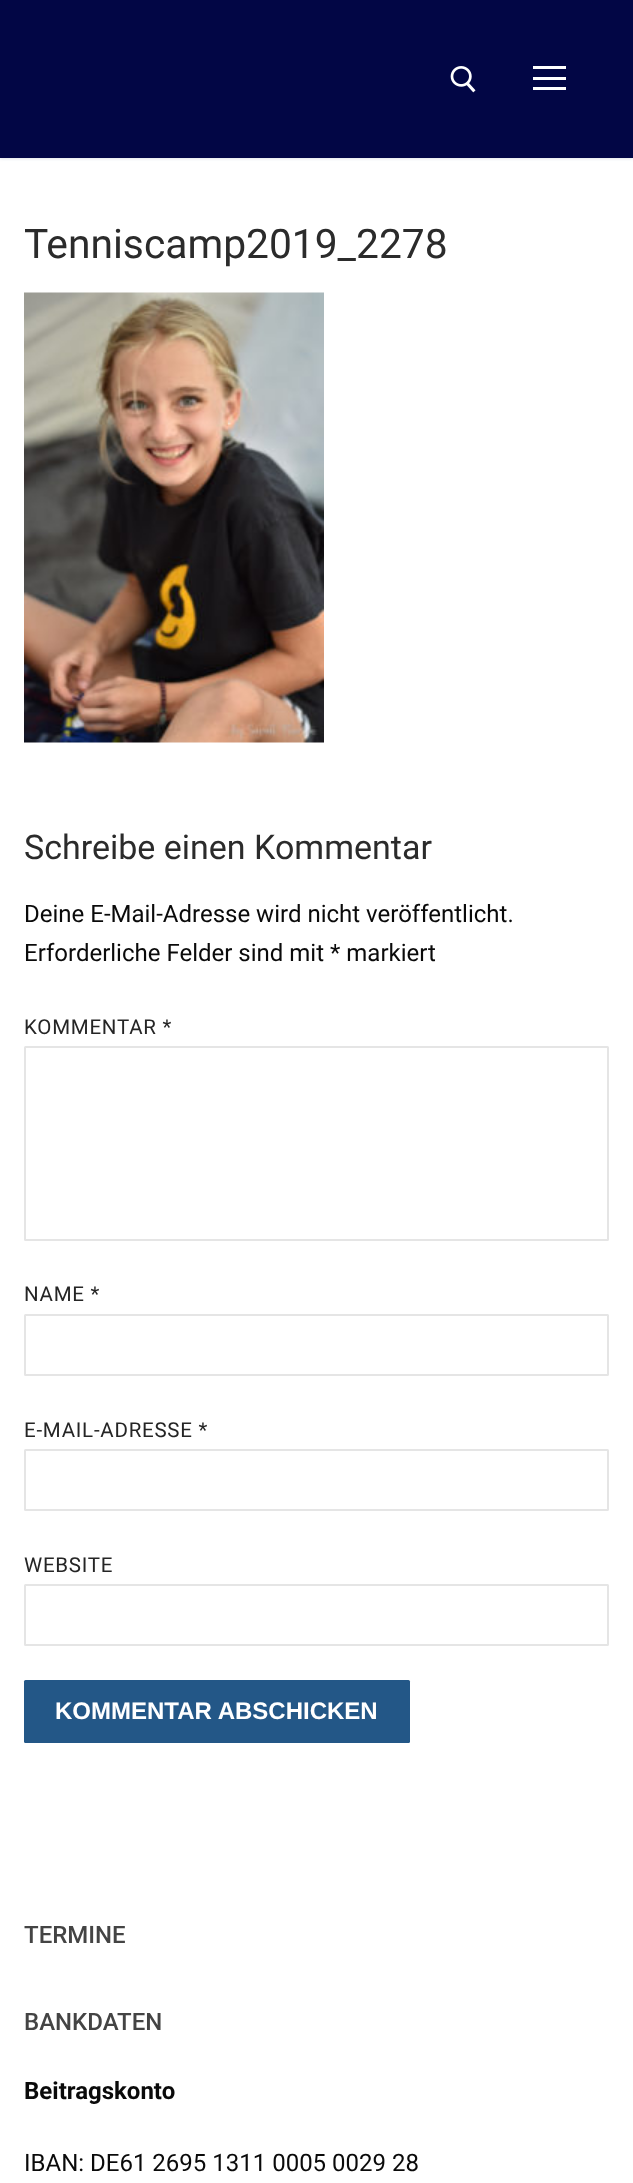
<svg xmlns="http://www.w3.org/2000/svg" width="633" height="2183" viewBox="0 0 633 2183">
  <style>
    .t1 { font: 40.75px Roboto; fill: #2b2b2b; }
    .t2 { font: 34px Roboto; fill: #2b2b2b; }
    .t3 { font: 24px Roboto; fill: #0a0a0a; }
    .t4 { font: 20.5px Roboto; letter-spacing: 0.75px; fill: #252525; }
    .t5 { font: bold 24px Liberation Sans; fill: #fff; }
    .t6 { font: 500 24px Roboto; fill: #444; }
    .t7 { font: bold 24px Roboto; fill: #0a0a0a; }
  </style>
  <rect width="100%" height="100%" fill="#fff"/>
  <rect x="0" y="2" width="633" height="157" fill="#e1e5ea" filter="blur(1.5px)"/>
  <rect x="0" y="0" width="633" height="158" fill="#020645"/>
  <image x="450" y="66" width="26" height="27" href="images/1.png"/>
  <rect x="533" y="77" width="33" height="3" fill="#fff"/>
  <rect x="533" y="66" width="33" height="3" fill="#fff"/>
  <rect x="533" y="87" width="33" height="3" fill="#fff"/>
  <text x="24" y="258" class="t1">Tenniscamp2019_2278</text>
  <image x="24" y="292" width="300" height="451" href="images/2.png"/>
  <text x="24" y="859" class="t2">Schreibe einen Kommentar</text>
  <text x="24" y="922" class="t3">Deine E-Mail-Adresse wird nicht veröffentlicht.</text>
  <text x="24" y="961" class="t3">Erforderliche Felder sind mit * markiert</text>
  <text x="24" y="1034" class="t4">KOMMENTAR *</text>
  <rect x="25" y="1047" width="583" height="193" rx="0.5" fill="none" stroke="#e5e5e5" stroke-width="2"/>
  <text x="24" y="1301" class="t4">NAME *</text>
  <rect x="25" y="1315" width="583" height="60" rx="0.5" fill="none" stroke="#e5e5e5" stroke-width="2"/>
  <text x="24" y="1437" class="t4">E-MAIL-ADRESSE *</text>
  <rect x="25" y="1450" width="583" height="60" rx="0.5" fill="none" stroke="#e5e5e5" stroke-width="2"/>
  <text x="24" y="1572" class="t4">WEBSITE</text>
  <rect x="25" y="1585" width="583" height="60" rx="0.5" fill="none" stroke="#e5e5e5" stroke-width="2"/>
  <rect x="24" y="1680" width="386" height="63" rx="1.5" fill="#235787"/>
  <text x="55" y="1719" class="t5">KOMMENTAR ABSCHICKEN</text>
  <text x="24" y="1943" class="t6">TERMINE</text>
  <text x="24" y="2030" class="t6">BANKDATEN</text>
  <text x="24" y="2099" class="t7">Beitragskonto</text>
  <text x="24" y="2171" class="t3">IBAN: DE61 2695 1311 0005 0029 28</text>
</svg>
